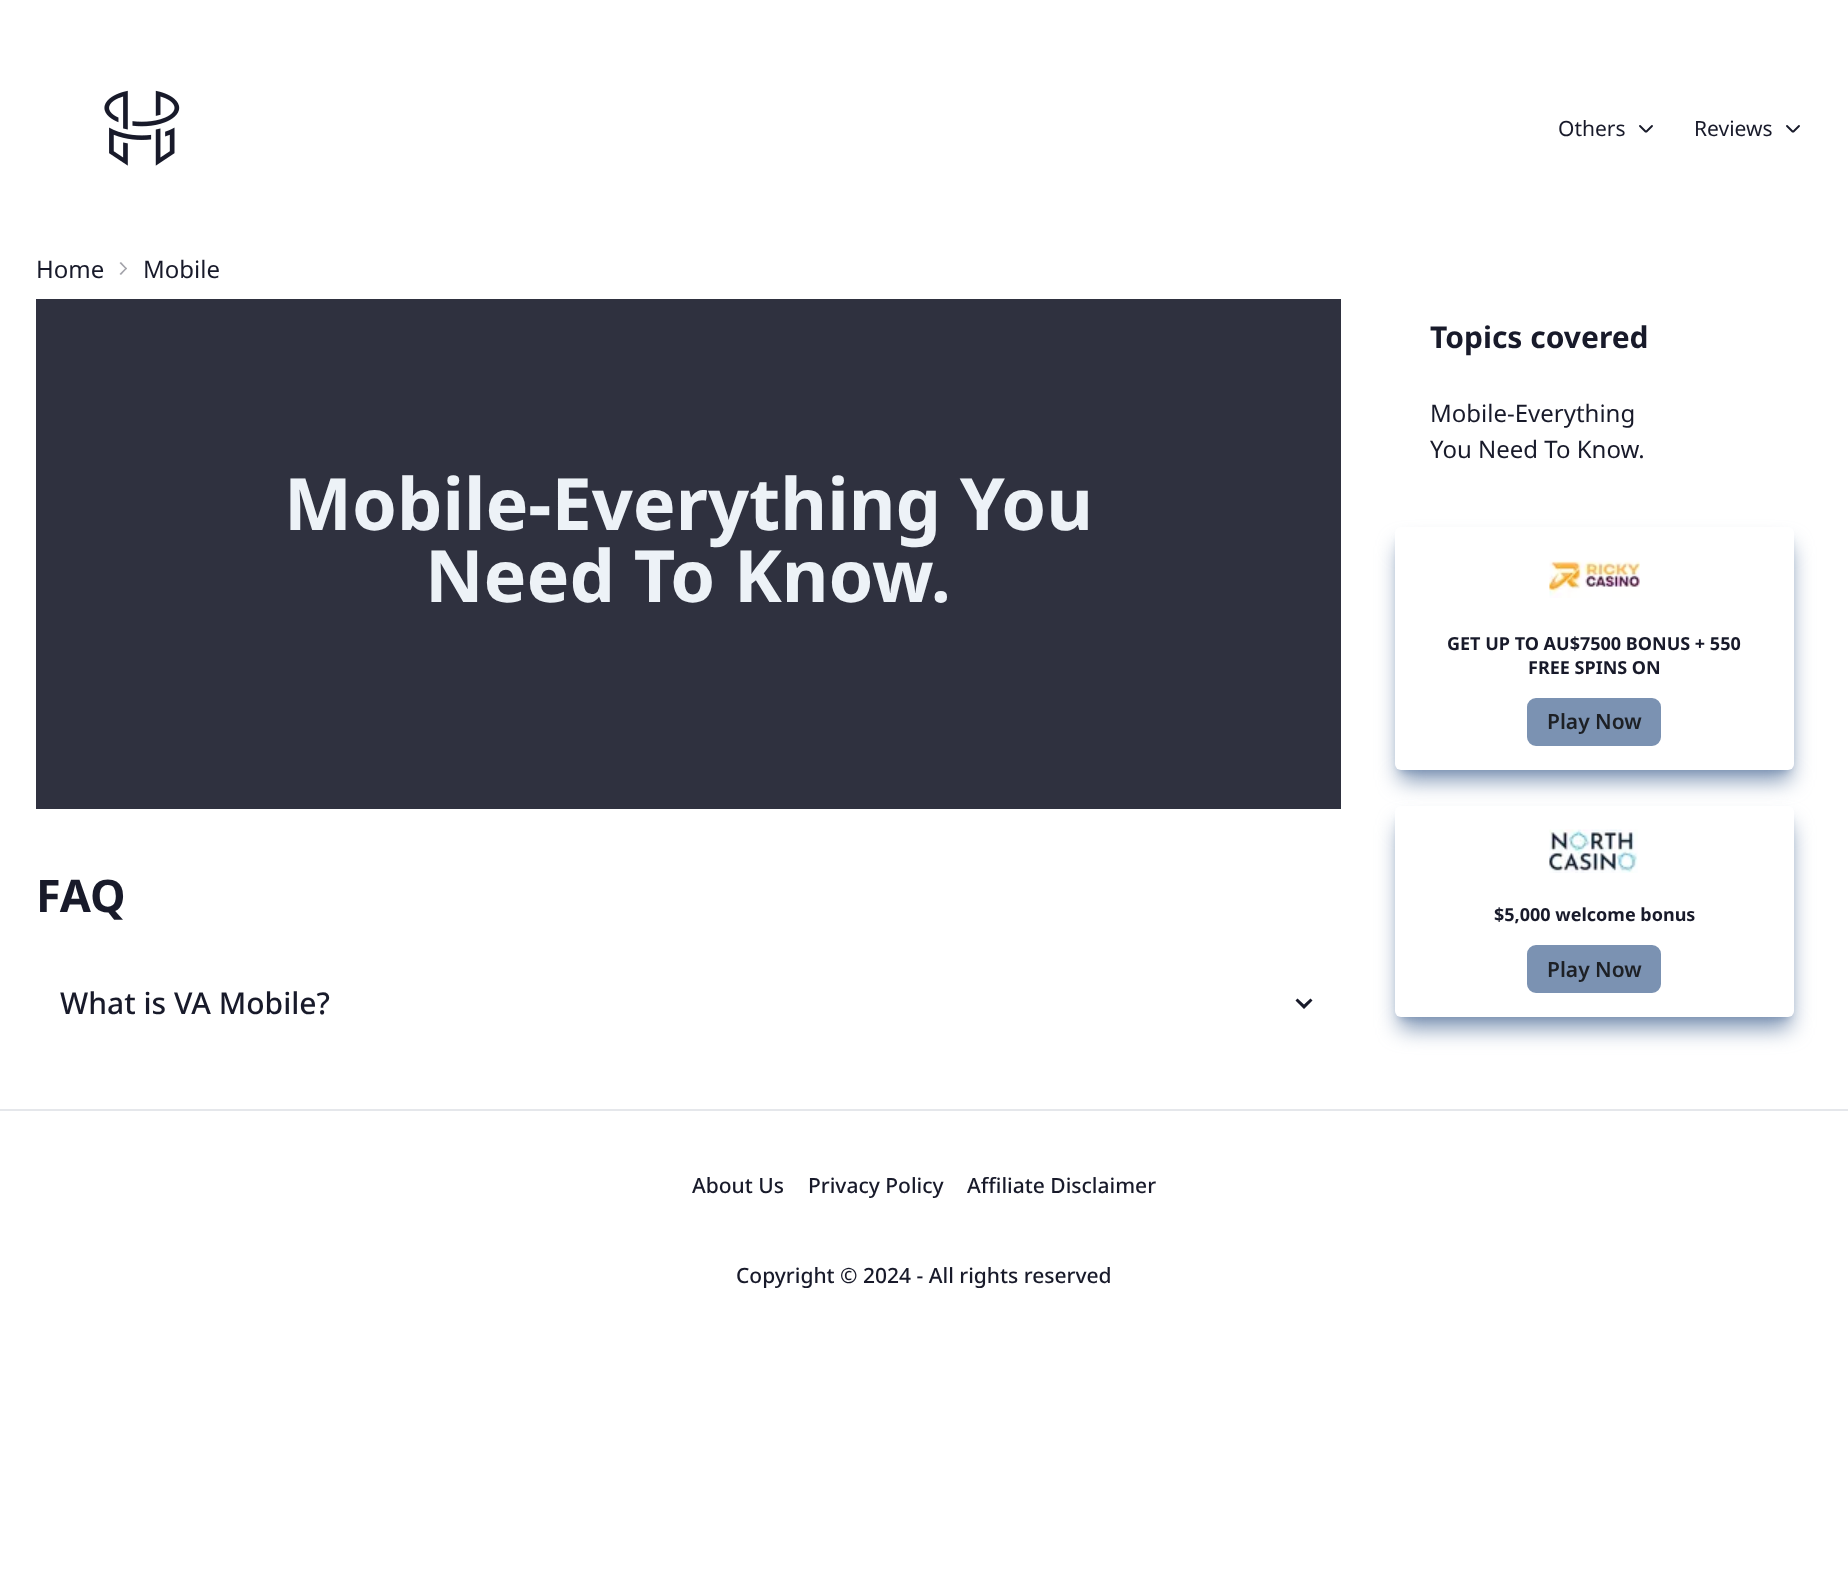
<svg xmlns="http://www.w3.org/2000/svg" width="1848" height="1596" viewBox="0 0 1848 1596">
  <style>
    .t1 { font: 21px Noto Sans; fill: #181a2a; }
    .t2 { font: 24px Noto Sans; fill: #181a2a; }
    .t3 { font: bold 72px Noto Sans; fill: #edf2f7; }
    .t4 { font: bold 45px Noto Sans; fill: #181a2a; }
    .t5 { font: 500 30px Noto Sans; fill: #181a2a; }
    .t6 { font: bold 30px Noto Sans; fill: #181a2a; }
    .t7 { font: bold 18px Noto Sans; fill: #181a2a; }
    .t8 { font: 600 21px Noto Sans; fill: #1d2025; }
    .t9 { font: 500 21px Noto Sans; fill: #181a2a; }
  </style>
  <rect width="100%" height="100%" fill="#fff"/>
  <image x="104" y="90" width="76" height="76" href="images/1.png"/>
  <text x="1558" y="136" class="t1">Others</text>
  <path d="M1640 126L1645.5 131.5H1646.5L1652 126" fill="none" stroke="#181a2a" stroke-width="1.9" stroke-linecap="round"/>
  <text x="1694" y="136" class="t1">Reviews</text>
  <path d="M1787 126L1792.5 131.5H1793.5L1799 126" fill="none" stroke="#181a2a" stroke-width="1.9" stroke-linecap="round"/>
  <text x="36" y="278" class="t2">Home</text>
  <path d="M121 262L127 268.5L126 269.5L119.5 263Z" fill="#a3a3aa"/>
  <path d="M126 267.5L127 268.5L121 275L119.5 274Z" fill="#a3a3aa"/>
  <text x="143" y="278" class="t2">Mobile</text>
  <rect x="36" y="299" width="1305" height="510" fill="#2f313f"/>
  <text x="284" y="530" class="t3">Mobile-Everything You</text>
  <text x="425" y="602" class="t3">Need To Know.</text>
  <text x="36" y="912" class="t4">FAQ</text>
  <text x="60" y="1014" class="t5">What is VA Mobile?</text>
  <path d="M1310.5 998.5L1304 1004.5L1297.5 998.5L1295.5 1000.5L1304 1009L1312.5 1000.5Z" fill="#181a2a"/>
  <text x="1430" y="348" class="t6">Topics covered</text>
  <text x="1430" y="422" class="t2">Mobile-Everything</text>
  <text x="1430" y="458" class="t2">You Need To Know.</text>
  <rect x="1401" y="539" width="387" height="231" fill="#7b92b2" filter="blur(4.5px)"/>
  <rect x="1400" y="546" width="390" height="234" rx="1.5" fill="#7b92b2" filter="blur(11px)"/>
  <rect x="1395" y="527" width="399" height="243" rx="6" fill="#fff"/>
  <image x="1549" y="560" width="91" height="38" href="images/2.png"/>
  <text x="1447" y="650" class="t7">GET UP TO AU$7500 BONUS + 550</text>
  <text x="1528" y="674" class="t7">FREE SPINS ON</text>
  <rect x="1528" y="699" width="132" height="46" rx="8" fill="#7b92b2" stroke="#7b92b2" stroke-width="2"/>
  <text x="1547" y="729" class="t8">Play Now</text>
  <rect x="1401" y="818" width="387" height="199" fill="#7b92b2" filter="blur(4.5px)"/>
  <rect x="1400" y="825" width="390" height="203" rx="1.5" fill="#7b92b2" filter="blur(11px)"/>
  <rect x="1395" y="806" width="399" height="211" rx="6" fill="#fff"/>
  <image x="1549" y="829" width="89" height="44" href="images/3.png"/>
  <text x="1494" y="921" class="t7">$5,000 welcome bonus</text>
  <rect x="1528" y="946" width="132" height="46" rx="8" fill="#7b92b2" stroke="#7b92b2" stroke-width="2"/>
  <text x="1547" y="977" class="t8">Play Now</text>
  <rect x="0" y="1109" width="1848" height="2" fill="#e5e7eb"/>
  <text x="692" y="1193" class="t9">About Us</text>
  <text x="808" y="1193" class="t9">Privacy Policy</text>
  <text x="967" y="1193" class="t9">Affiliate Disclaimer</text>
  <text x="736" y="1283" class="t9">Copyright © 2024 - All rights reserved</text>
</svg>
